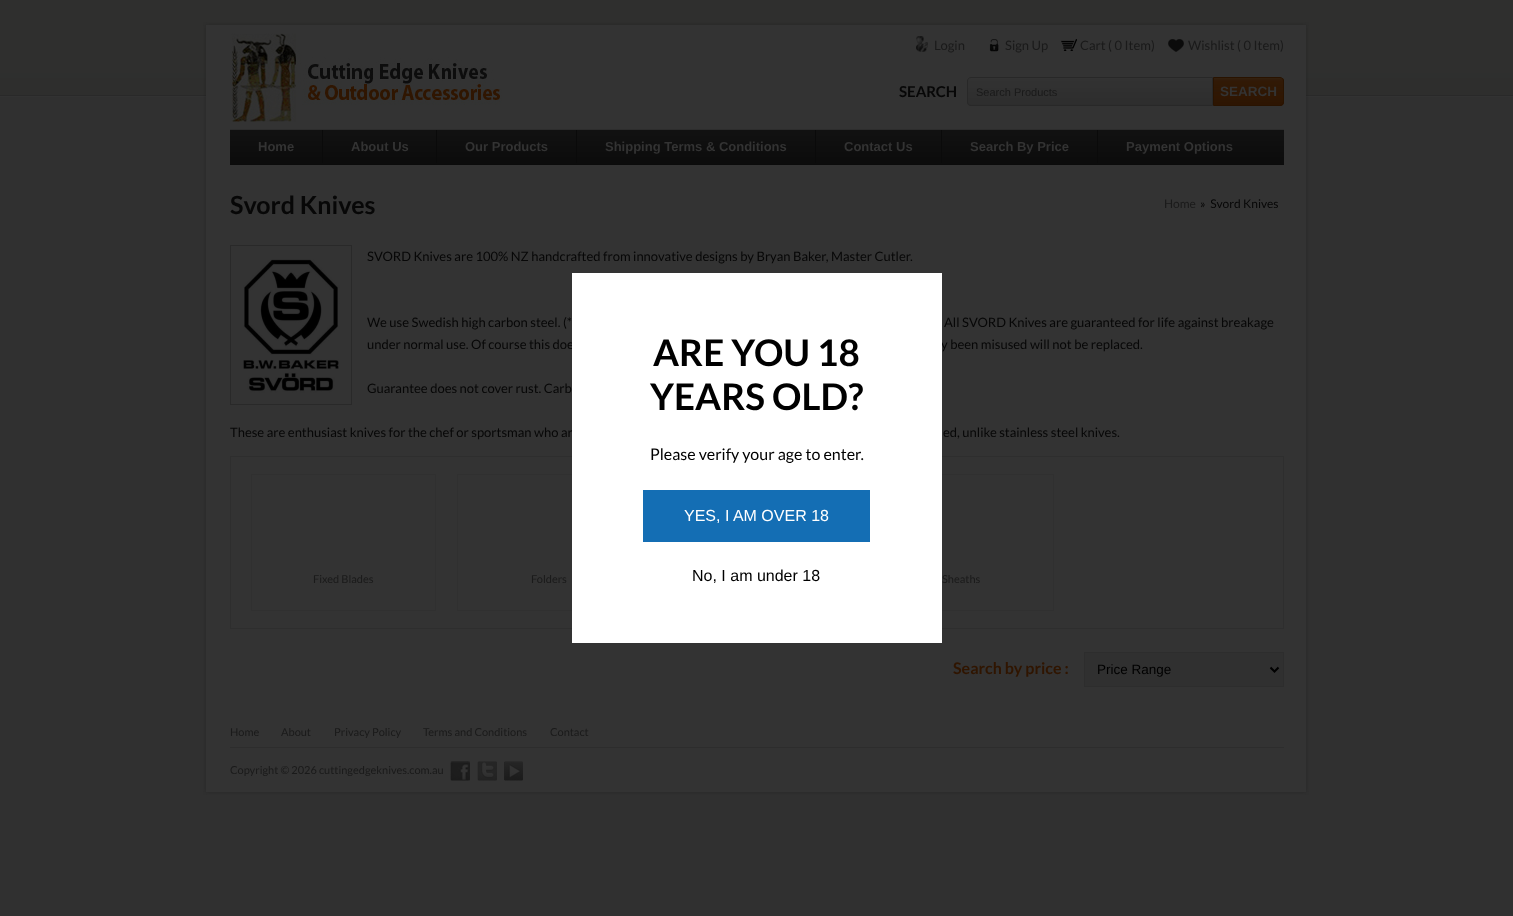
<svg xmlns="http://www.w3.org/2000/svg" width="1513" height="916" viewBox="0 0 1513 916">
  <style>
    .t1 { font: 13px Lato; fill: #1a1a1a; }
    .t2 { font: bold 15px Lato; fill: #070707; }
    .t3 { font: 11px Liberation Sans; fill: #1a1a1a; }
    .t4 { font: bold 13.5px Liberation Sans; fill: #333; }
    .t5 { font: bold 13px Liberation Sans; fill: #333; }
    .t6 { font: bold 25px Lato; fill: #070707; }
    .t7 { font: 12px Lato; fill: #1a1a1a; }
    .t8 { font: 12px Lato; fill: #070707; }
    .t9 { font: 13px Lato; fill: #070707; }
    .t10 { font: 11px Lato; fill: #1a1a1a; }
    .t11 { font: bold 16px Lato; fill: #301500; }
    .t12 { font: 13.5px Liberation Sans; fill: #000; }
    .t13 { font: bold 36.75px Lato; fill: #000; }
    .t14 { font: 16px Lato; fill: #000; }
    .t15 { font: 16px Liberation Sans; fill: #fff; }
    .t16 { font: 16px Liberation Sans; fill: #000; }
  </style>
  <rect width="100%" height="100%" fill="#303030"/>
  <image x="0" y="0" width="1513" height="97" href="images/1.png"/>
  <image x="203" y="22" width="1106" height="11" href="images/2.png"/>
  <image x="203" y="33" width="1106" height="751" href="images/3.png"/>
  <rect x="230" y="129" width="1054" height="1" fill="#2d2d2d"/>
  <image x="230" y="33" width="272" height="89" href="images/4.png"/>
  <image x="916" y="36" width="12" height="16" href="images/5.png"/>
  <text x="934" y="50" class="t1">Login</text>
  <image x="989" y="39" width="10" height="13" href="images/6.png"/>
  <text x="1005" y="50" class="t1">Sign Up</text>
  <image x="1061" y="39" width="16" height="12" href="images/7.png"/>
  <text x="1080" y="50" class="t1">Cart ( 0 Item)</text>
  <image x="1168" y="39" width="16" height="13" href="images/8.png"/>
  <text x="1188" y="50" class="t1">Wishlist ( 0 Item)</text>
  <text x="899" y="97" class="t2">SEARCH</text>
  <image x="967" y="79" width="245" height="27" href="images/9.png"/>
  <path d="M971 77.5H1212.5V105.5H971C969 105.5 967.5 104 967.5 102V81C967.5 79 969 77.5 971 77.5Z" fill="none" stroke="#282828"/>
  <text x="976" y="96" class="t3">Search Products</text>
  <image x="1214" y="78" width="70" height="28" href="images/10.png"/>
  <path d="M1213.5 77.5H1280C1282 77.5 1283.5 79 1283.5 81V102C1283.5 104 1282 105.5 1280 105.5H1213.5Z" fill="none" stroke="#291300"/>
  <text x="1220" y="96" class="t4">SEARCH</text>
  <image x="230" y="130" width="1054" height="35" href="images/11.png"/>
  <rect x="322" y="130" width="1" height="33" fill="#0a0a0a"/>
  <text x="258" y="151" class="t5">Home</text>
  <rect x="436" y="130" width="1" height="33" fill="#0a0a0a"/>
  <text x="351" y="151" class="t5">About Us</text>
  <rect x="576" y="130" width="1" height="33" fill="#0a0a0a"/>
  <text x="465" y="151" class="t5">Our Products</text>
  <rect x="815" y="130" width="1" height="33" fill="#0a0a0a"/>
  <text x="605" y="151" class="t5">Shipping Terms &amp; Conditions</text>
  <rect x="941" y="130" width="1" height="33" fill="#0a0a0a"/>
  <text x="844" y="151" class="t5">Contact Us</text>
  <rect x="1097" y="130" width="1" height="33" fill="#0a0a0a"/>
  <text x="970" y="151" class="t5">Search By Price</text>
  <text x="1126" y="151" class="t5">Payment Options</text>
  <text x="230" y="214" class="t6">Svord Knives</text>
  <text x="1164" y="208" class="t7">Home</text>
  <text x="1200" y="208" class="t8" xml:space="preserve">»  Svord Knives</text>
  <rect x="230.5" y="245.5" width="121" height="159" fill="none" stroke="#292929"/>
  <image x="243" y="259" width="97" height="134" href="images/12.png"/>
  <text x="367" y="261" class="t9">SVORD Knives are 100% NZ handcrafted from innovative designs by Bryan Baker, Master Cutler.</text>
  <text x="367" y="327" class="t9">We use Swedish high carbon steel. (*</text>
  <text x="944" y="327" class="t9">All SVORD Knives are guaranteed for life against breakage</text>
  <text x="367" y="349" class="t9">under normal use. Of course this doe</text>
  <text x="941" y="349" class="t9">y been misused will not be replaced.</text>
  <text x="367" y="393" class="t9">Guarantee does not cover rust. Carb</text>
  <text x="230" y="437" class="t9">These are enthusiast knives for the chef or sportsman who ar</text>
  <text x="943" y="437" class="t9">ed, unlike stainless steel knives.</text>
  <rect x="230.5" y="456.5" width="1053" height="172" fill="none" stroke="#2e2e2e"/>
  <rect x="251.5" y="474.5" width="184" height="136" fill="none" stroke="#303030"/>
  <text x="313" y="583" class="t10">Fixed Blades</text>
  <rect x="457.5" y="474.5" width="184" height="136" fill="none" stroke="#303030"/>
  <text x="531" y="583" class="t10">Folders</text>
  <rect x="868.5" y="474.5" width="185" height="136" fill="none" stroke="#303030"/>
  <text x="942" y="583" class="t10">Sheaths</text>
  <text x="953" y="674" class="t11">Search by price :</text>
  <rect x="1084.5" y="652.5" width="199" height="34" fill="#303030" stroke="#2d2d2d"/>
  <path d="M1270.5 667.5L1274.5 671.5L1278.5 667.5" fill="none" stroke="#000" stroke-width="2"/>
  <text x="1097" y="674" class="t12">Price Range</text>
  <rect x="572" y="273" width="370" height="370" fill="#fff"/>
  <text x="653" y="366" class="t13">ARE YOU 18</text>
  <text x="650" y="410" class="t13">YEARS OLD?</text>
  <text x="650" y="460" class="t14">Please verify your age to enter.</text>
  <rect x="643" y="490" width="227" height="52" fill="#146eb4"/>
  <text x="684" y="521" class="t15">YES, I AM OVER 18</text>
  <text x="692" y="581" class="t16">No, I am under 18</text>
  <text x="230" y="736" class="t10">Home</text>
  <text x="281" y="736" class="t10">About</text>
  <text x="334" y="736" class="t10">Privacy Policy</text>
  <text x="423" y="736" class="t10">Terms and Conditions</text>
  <text x="550" y="736" class="t10">Contact</text>
  <rect x="230" y="747" width="1054" height="1" fill="#2d2d2d"/>
  <text x="230" y="774" class="t10">Copyright © 2026 cuttingedgeknives.com.au</text>
  <image x="450" y="761" width="73" height="20" href="images/13.png"/>
  <image x="203" y="784" width="1106" height="11" href="images/14.png"/>
</svg>
